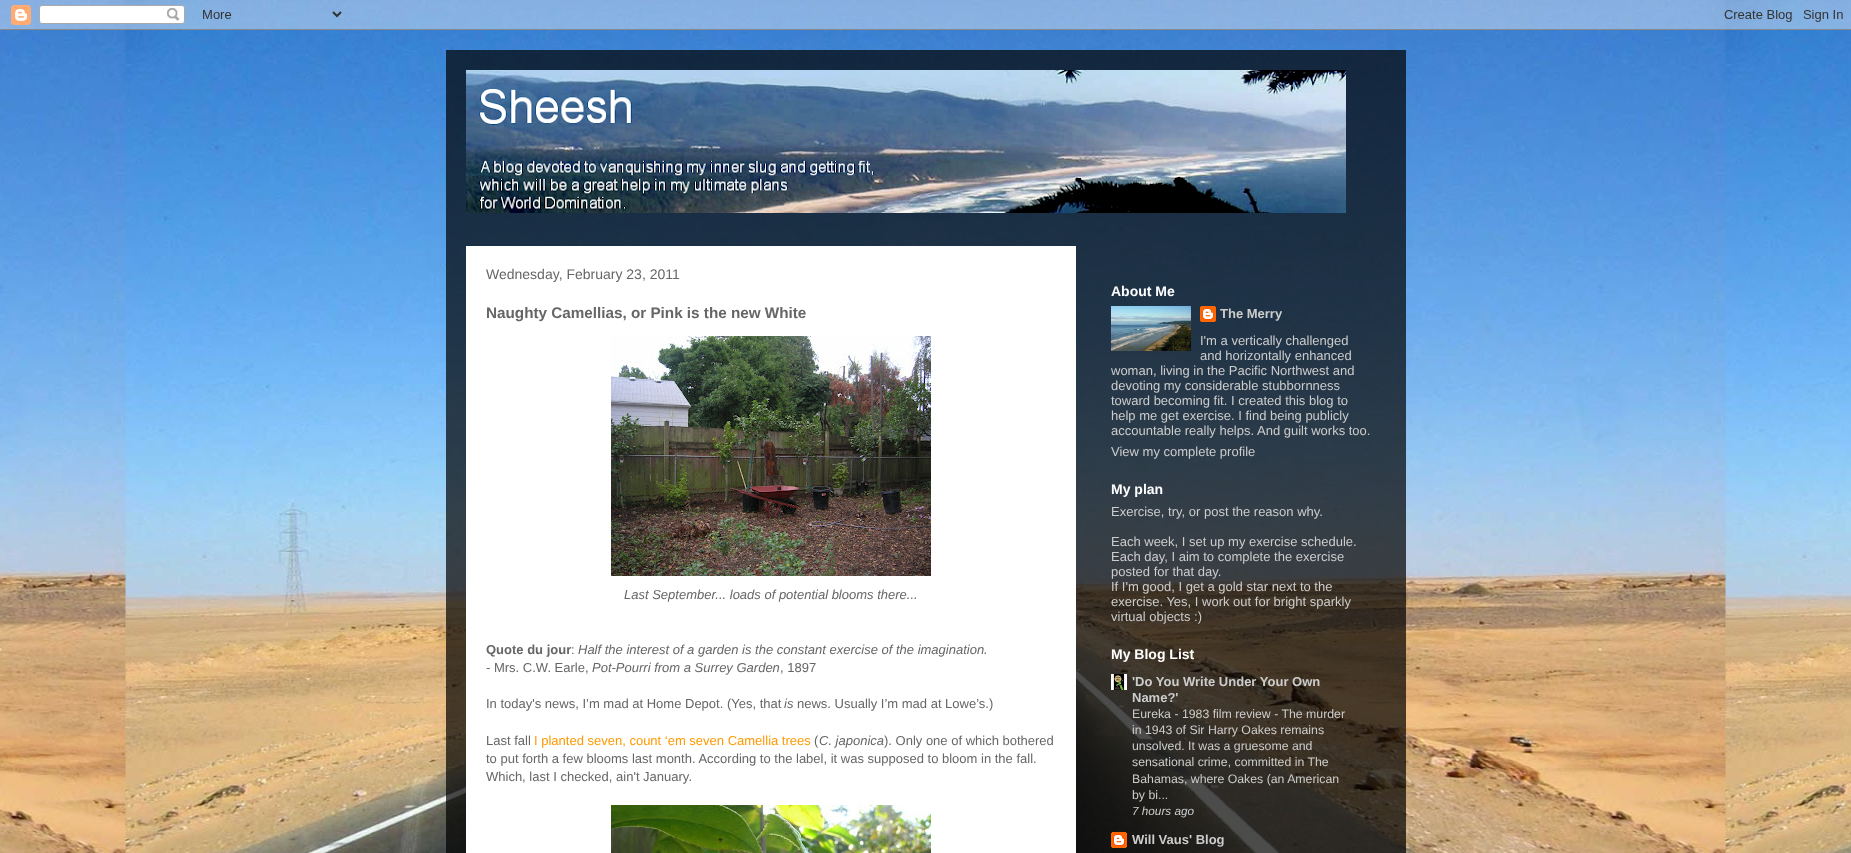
<svg xmlns="http://www.w3.org/2000/svg" width="1851" height="853" viewBox="0 0 1851 853">
  <style>
    .t1 { font: 14px Liberation Sans; fill: #666; }
    .t2 { font: bold 15.25px Liberation Sans; fill: #666; }
    .t3 { font: italic 13px Liberation Sans; fill: #666; }
    .t4 { font: bold 13px Liberation Sans; fill: #666; }
    .t5 { font: 13px Liberation Sans; fill: #666; }
    .t6 { font: 13px Liberation Sans; fill: #f90; }
    .t7 { font: bold 14px Liberation Sans; fill: #fff; }
    .t8 { font: bold 13px Liberation Sans; fill: #ccc; }
    .t9 { font: 13px Liberation Sans; fill: #ccc; }
    .t10 { font: 12.3px Liberation Sans; fill: #ccc; }
    .t11 { font: italic 11.75px Liberation Sans; fill: #ccc; }
  </style>
  <rect width="100%" height="100%" fill="#fff"/>
  <image x="0" y="0" width="1851" height="853" href="images/1.png"/>
  <image x="0" y="0" width="1851" height="30" href="images/2.png"/>
  <rect x="446" y="50" width="960" height="803" fill="#000000b3"/>
  <image x="466" y="70" width="880" height="143" href="images/3.png"/>
  <rect x="466" y="246" width="610" height="607" fill="#fff"/>
  <text x="486" y="279" class="t1">Wednesday, February 23, 2011</text>
  <text x="486" y="318" class="t2">Naughty Camellias, or Pink is the new White</text>
  <image x="611" y="336" width="320" height="240" href="images/4.png"/>
  <text x="624" y="599" class="t3">Last September... loads of potential blooms there...</text>
  <text x="486" y="654" class="t4">Quote du jour</text>
  <text x="571" y="654" class="t5">:</text>
  <text x="578" y="654" class="t3">Half the interest of a garden is the constant exercise of the imagination.</text>
  <text x="486" y="672" class="t5">- Mrs. C.W. Earle,</text>
  <text x="592" y="672" class="t3">Pot-Pourri from a Surrey Garden</text>
  <text x="780" y="672" class="t5">, 1897</text>
  <text x="486" y="708" class="t5">In today's news, I’m mad at Home Depot. (Yes, that</text>
  <text x="784" y="708" class="t3">is</text>
  <text x="797" y="708" class="t5">news. Usually I’m mad at Lowe’s.)</text>
  <text x="486" y="745" class="t5">Last fall</text>
  <text x="534" y="745" class="t6">I planted seven, count ‘em seven Camellia trees</text>
  <text x="814" y="745" class="t5">(</text>
  <text x="819" y="745" class="t3">C. japonica</text>
  <text x="884" y="745" class="t5">). Only one of which bothered</text>
  <text x="486" y="763" class="t5">to put forth a few blooms last month. According to the label, it was supposed to bloom in the fall.</text>
  <text x="486" y="781" class="t5">Which, last I checked, ain't January.</text>
  <image x="611" y="805" width="320" height="48" href="images/5.png"/>
  <text x="1111" y="296" class="t7">About Me</text>
  <image x="1111" y="306" width="80" height="45" href="images/6.png"/>
  <image x="1200" y="306" width="16" height="16" href="images/7.png"/>
  <text x="1220" y="318" class="t8">The Merry</text>
  <text x="1200" y="345" class="t9">I'm a vertically challenged</text>
  <text x="1200" y="360" class="t9">and horizontally enhanced</text>
  <text x="1111" y="375" class="t9">woman, living in the Pacific Northwest and</text>
  <text x="1111" y="390" class="t9">devoting my considerable stubbornness</text>
  <text x="1111" y="405" class="t9">toward becoming fit. I created this blog to</text>
  <text x="1111" y="420" class="t9">help me get exercise. I find being publicly</text>
  <text x="1111" y="435" class="t9">accountable really helps. And guilt works too.</text>
  <text x="1111" y="456" class="t9">View my complete profile</text>
  <text x="1111" y="494" class="t7">My plan</text>
  <text x="1111" y="516" class="t9">Exercise, try, or post the reason why.</text>
  <text x="1111" y="546" class="t9">Each week, I set up my exercise schedule.</text>
  <text x="1111" y="561" class="t9">Each day, I aim to complete the exercise</text>
  <text x="1111" y="576" class="t9">posted for that day.</text>
  <text x="1111" y="591" class="t9">If I'm good, I get a gold star next to the</text>
  <text x="1111" y="606" class="t9">exercise. Yes, I work out for bright sparkly</text>
  <text x="1111" y="621" class="t9">virtual objects :)</text>
  <text x="1111" y="659" class="t7">My Blog List</text>
  <image x="1111" y="674" width="16" height="16" href="images/8.png"/>
  <text x="1132" y="686" class="t8">'Do You Write Under Your Own</text>
  <text x="1132" y="702" class="t8">Name?'</text>
  <text x="1132" y="718" class="t10">Eureka - 1983 film review - The murder</text>
  <text x="1132" y="734" class="t10">in 1943 of Sir Harry Oakes remains</text>
  <text x="1132" y="750" class="t10">unsolved. It was a gruesome and</text>
  <text x="1132" y="766" class="t10">sensational crime, committed in The</text>
  <text x="1132" y="783" class="t10">Bahamas, where Oakes (an American</text>
  <text x="1132" y="799" class="t10">by bi...</text>
  <text x="1132" y="815" class="t11">7 hours ago</text>
  <image x="1111" y="832" width="16" height="16" href="images/9.png"/>
  <text x="1132" y="844" class="t8">Will Vaus' Blog</text>
</svg>
